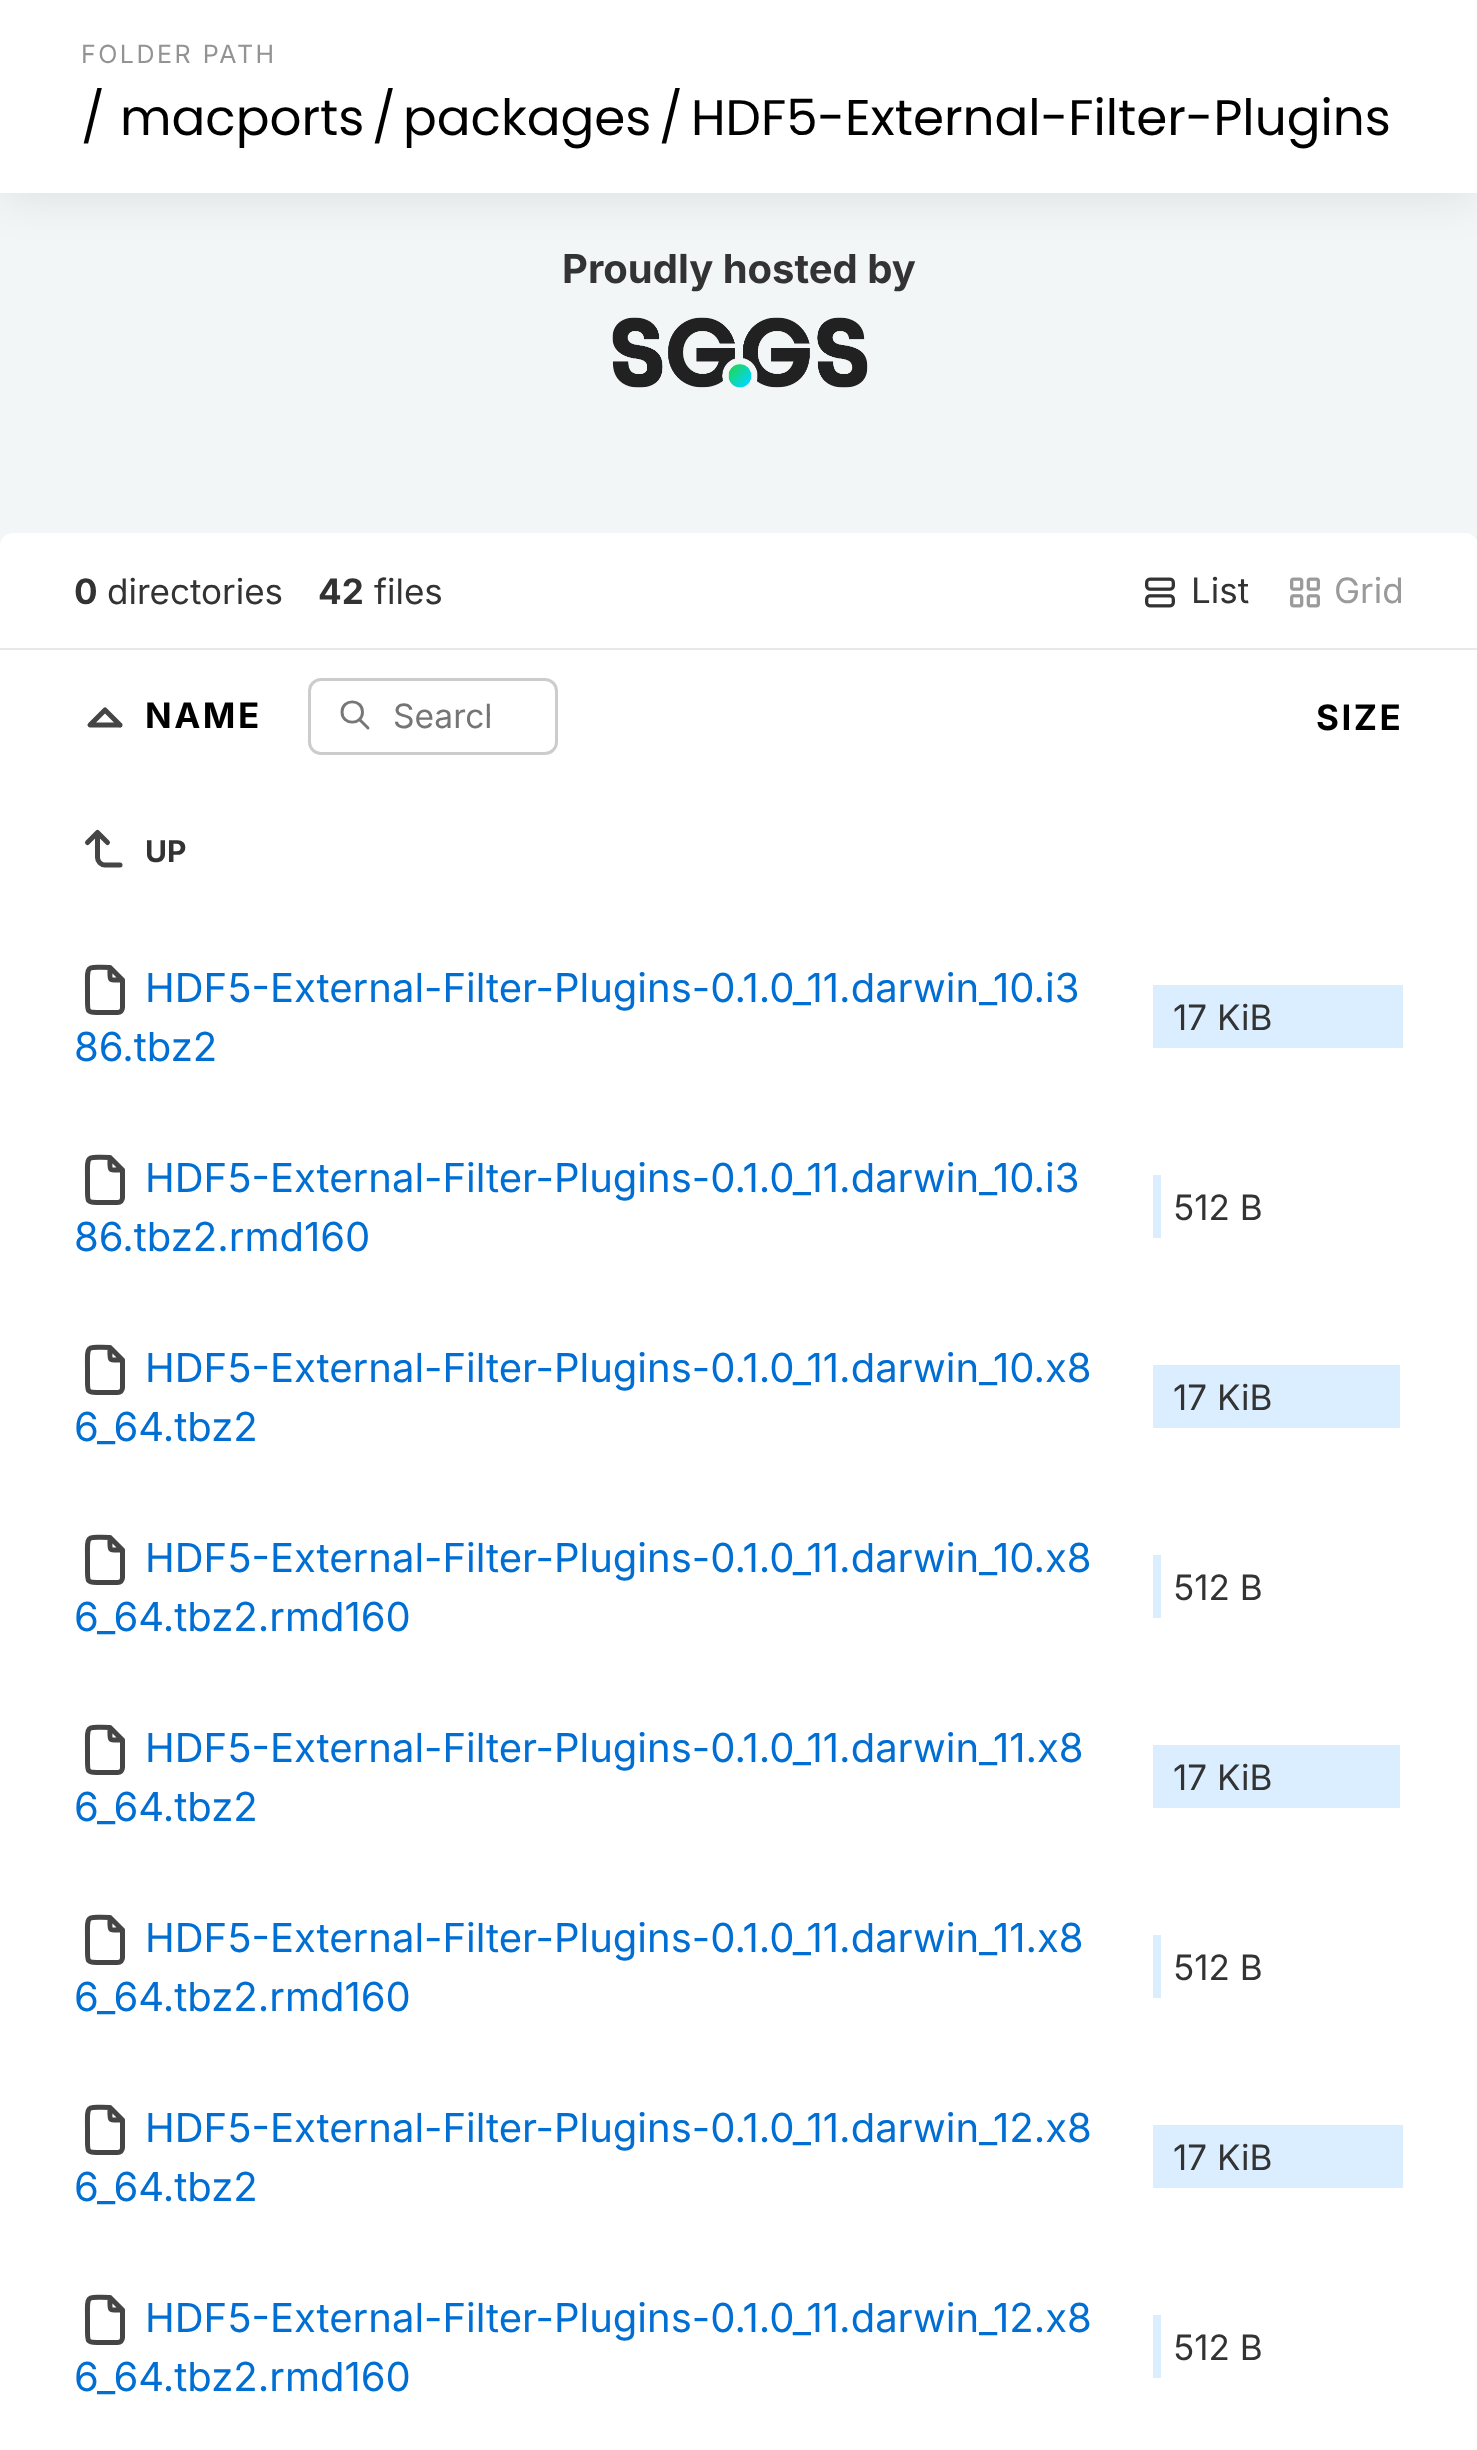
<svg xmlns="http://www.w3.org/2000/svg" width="1477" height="2450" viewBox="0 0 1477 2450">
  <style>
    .t1 { font: 25px Inter; letter-spacing: 2.5px; fill: #939393; }
    .t2 { font: 50px Poppins; fill: #000; }
    .t3 { font: bold 40px Inter; fill: #333; }
    .t4 { font: bold 35px Inter; fill: #333; }
    .t5 { font: 35px Inter; fill: #333; }
    .t6 { font: 35px Inter; fill: #9a9a9a; }
    .t7 { font: bold 35px Inter; letter-spacing: 2.5px; fill: #000; }
    .t8 { font: 33.5px Inter; fill: #757575; }
    .t9 { font: bold 30px Inter; fill: #333; }
    .t10 { font: 40px Inter; fill: #006ed3; }
  </style>
  <defs>
    <clipPath id="clip1"><rect x="393" y="695" width="97" height="40"/></clipPath>
  </defs>
  <rect width="100%" height="100%" fill="#f3f6f7"/>
  <rect x="0" y="0" width="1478" height="193" fill="#0000001a" filter="blur(25px)"/>
  <rect x="0" y="0" width="1477" height="193" fill="#fff"/>
  <text x="81" y="63" class="t1">FOLDER PATH</text>
  <text x="81" y="135" class="t2">/</text>
  <text x="120" y="135" class="t2">macports</text>
  <text x="372" y="135" class="t2">/</text>
  <text x="403" y="135" class="t2">packages</text>
  <text x="659" y="135" class="t2">/</text>
  <text x="691" y="135" class="t2">HDF5-External-Filter-Plugins</text>
  <text x="562" y="283" class="t3">Proudly hosted by</text>
  <image x="612" y="317" width="256" height="71" href="images/1.png"/>
  <rect x="0" y="533" width="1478" height="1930" rx="13" fill="#fff"/>
  <rect x="0" y="648" width="1477" height="2" fill="#e5e9ea"/>
  <text x="74" y="604" class="t4">0</text>
  <text x="107" y="604" class="t5">directories</text>
  <text x="318" y="604" class="t4">42</text>
  <text x="374" y="604" class="t5">files</text>
  <image x="1145" y="577" width="30" height="31" href="images/2.png"/>
  <text x="1191" y="603" class="t5">List</text>
  <image x="1290" y="577" width="30" height="31" href="images/3.png"/>
  <text x="1334" y="603" class="t6">Grid</text>
  <path d="M120 725L105 710L90 725H120" fill="none" stroke="#454545" stroke-width="5" stroke-linecap="round" stroke-linejoin="round"/>
  <text x="145" y="728" class="t7">NAME</text>
  <path d="M342 712C342 725.5 362.5 725.5 362.5 712C362.5 698.5 342 698.5 342 712M368 728L359.5 719.5" fill="none" stroke="#777" stroke-width="2.9" stroke-linecap="round" stroke-linejoin="round"/>
  <rect x="309.5" y="679.5" width="247" height="74" rx="11.5" fill="none" stroke="#ccc" stroke-width="3"/>
  <g clip-path="url(#clip1)">
    <text x="393" y="728" class="t8">Search</text>
  </g>
  <text x="1316" y="730" class="t7">SIZE</text>
  <path d="M120 865H105C101 865 97.5 861.5 97.5 857.5V832.5L87.5 842.5M107.5 842.5L97.5 832.5" fill="none" stroke="#454545" stroke-width="5" stroke-linecap="round" stroke-linejoin="round"/>
  <text x="145" y="862" class="t9">UP</text>
  <path d="M110 967.5C110 982 108 980 122.5 980M117.5 1012.5H96.5C87.5 1012.5 87.5 1011 87.5 1001.5V990C87.5 963.5 85 967.5 110 967.5L122.5 980V1007.5C122.5 1010.5 120.5 1012.5 117.5 1012.5Z" fill="none" stroke="#454545" stroke-width="5" stroke-linecap="round" stroke-linejoin="round"/>
  <text x="145" y="1002" class="t10">HDF5-External-Filter-Plugins-0.1.0_11.darwin_10.i3</text>
  <text x="74" y="1061" class="t10">86.tbz2</text>
  <rect x="1153" y="985" width="250" height="63" fill="#dbeeff"/>
  <text x="1173" y="1030" class="t5">17 KiB</text>
  <path d="M110 1157.5C110 1172 108 1170 122.5 1170M117.5 1202.5H96.5C87.5 1202.5 87.5 1201 87.5 1191.5V1180C87.5 1153.5 85 1157.5 110 1157.5L122.5 1170V1197.5C122.5 1200.5 120.5 1202.5 117.5 1202.5Z" fill="none" stroke="#454545" stroke-width="5" stroke-linecap="round" stroke-linejoin="round"/>
  <text x="145" y="1192" class="t10">HDF5-External-Filter-Plugins-0.1.0_11.darwin_10.i3</text>
  <text x="74" y="1251" class="t10">86.tbz2.rmd160</text>
  <rect x="1153" y="1175" width="8" height="63" fill="#dbeeff"/>
  <text x="1173" y="1220" class="t5">512 B</text>
  <path d="M110 1347.5C110 1362 108 1360 122.5 1360M117.5 1392.5H96.5C87.5 1392.5 87.5 1391 87.5 1381.5V1370C87.5 1343.5 85 1347.5 110 1347.5L122.5 1360V1387.5C122.5 1390.5 120.5 1392.5 117.5 1392.5Z" fill="none" stroke="#454545" stroke-width="5" stroke-linecap="round" stroke-linejoin="round"/>
  <text x="145" y="1382" class="t10">HDF5-External-Filter-Plugins-0.1.0_11.darwin_10.x8</text>
  <text x="74" y="1441" class="t10">6_64.tbz2</text>
  <rect x="1153" y="1365" width="247" height="63" fill="#dbeeff"/>
  <text x="1173" y="1410" class="t5">17 KiB</text>
  <path d="M110 1537.5C110 1552 108 1550 122.5 1550M117.5 1582.5H96.5C87.5 1582.5 87.5 1581 87.5 1571.5V1560C87.5 1533.5 85 1537.5 110 1537.5L122.5 1550V1577.5C122.5 1580.5 120.5 1582.5 117.5 1582.5Z" fill="none" stroke="#454545" stroke-width="5" stroke-linecap="round" stroke-linejoin="round"/>
  <text x="145" y="1572" class="t10">HDF5-External-Filter-Plugins-0.1.0_11.darwin_10.x8</text>
  <text x="74" y="1631" class="t10">6_64.tbz2.rmd160</text>
  <rect x="1153" y="1555" width="8" height="63" fill="#dbeeff"/>
  <text x="1173" y="1600" class="t5">512 B</text>
  <path d="M110 1727.5C110 1742 108 1740 122.5 1740M117.5 1772.5H96.5C87.5 1772.5 87.5 1771 87.5 1761.5V1750C87.5 1723.5 85 1727.5 110 1727.5L122.5 1740V1767.5C122.5 1770.5 120.5 1772.5 117.5 1772.5Z" fill="none" stroke="#454545" stroke-width="5" stroke-linecap="round" stroke-linejoin="round"/>
  <text x="145" y="1762" class="t10">HDF5-External-Filter-Plugins-0.1.0_11.darwin_11.x8</text>
  <text x="74" y="1821" class="t10">6_64.tbz2</text>
  <rect x="1153" y="1745" width="247" height="63" fill="#dbeeff"/>
  <text x="1173" y="1790" class="t5">17 KiB</text>
  <path d="M110 1917.5C110 1932 108 1930 122.5 1930M117.5 1962.5H96.5C87.5 1962.5 87.5 1961 87.5 1951.5V1940C87.5 1913.5 85 1917.5 110 1917.5L122.5 1930V1957.5C122.5 1960.5 120.5 1962.5 117.5 1962.5Z" fill="none" stroke="#454545" stroke-width="5" stroke-linecap="round" stroke-linejoin="round"/>
  <text x="145" y="1952" class="t10">HDF5-External-Filter-Plugins-0.1.0_11.darwin_11.x8</text>
  <text x="74" y="2011" class="t10">6_64.tbz2.rmd160</text>
  <rect x="1153" y="1935" width="8" height="63" fill="#dbeeff"/>
  <text x="1173" y="1980" class="t5">512 B</text>
  <path d="M110 2107.5C110 2122 108 2120 122.5 2120M117.5 2152.5H96.5C87.5 2152.5 87.5 2151 87.5 2141.5V2130C87.5 2103.5 85 2107.5 110 2107.5L122.5 2120V2147.5C122.5 2150.5 120.5 2152.5 117.5 2152.5Z" fill="none" stroke="#454545" stroke-width="5" stroke-linecap="round" stroke-linejoin="round"/>
  <text x="145" y="2142" class="t10">HDF5-External-Filter-Plugins-0.1.0_11.darwin_12.x8</text>
  <text x="74" y="2201" class="t10">6_64.tbz2</text>
  <rect x="1153" y="2125" width="250" height="63" fill="#dbeeff"/>
  <text x="1173" y="2170" class="t5">17 KiB</text>
  <path d="M110 2297.5C110 2312 108 2310 122.5 2310M117.5 2342.5H96.5C87.5 2342.5 87.5 2341 87.5 2331.5V2320C87.5 2293.5 85 2297.5 110 2297.5L122.5 2310V2337.5C122.5 2340.5 120.5 2342.5 117.5 2342.5Z" fill="none" stroke="#454545" stroke-width="5" stroke-linecap="round" stroke-linejoin="round"/>
  <text x="145" y="2332" class="t10">HDF5-External-Filter-Plugins-0.1.0_11.darwin_12.x8</text>
  <text x="74" y="2391" class="t10">6_64.tbz2.rmd160</text>
  <rect x="1153" y="2315" width="8" height="63" fill="#dbeeff"/>
  <text x="1173" y="2360" class="t5">512 B</text>
</svg>
